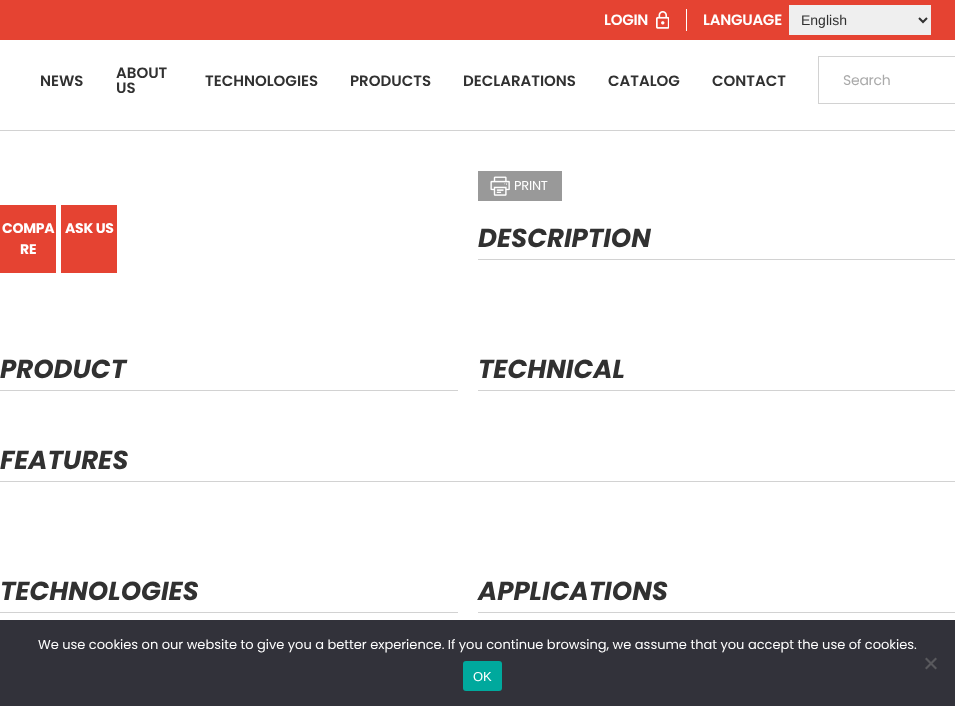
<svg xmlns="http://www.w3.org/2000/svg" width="955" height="706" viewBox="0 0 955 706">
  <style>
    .t1 { font: 600 15px Poppins; letter-spacing: -0.25px; fill: #fff; }
    .t2 { font: 14px Liberation Sans; fill: #313131; }
    .t3 { font: 600 15px Poppins; fill: #313131; }
    .t4 { font: 14px Poppins; letter-spacing: -0.25px; fill: #aaa; }
    .t5 { font: bold 14px Poppins; letter-spacing: -0.25px; fill: #fff; }
    .t6 { font: 13px Poppins; letter-spacing: -0.25px; fill: #fff; }
    .t7 { font: italic bold 26px Poppins; fill: #313131; }
    .t8 { font: 13px Poppins; fill: #fff; }
    .t9 { font: 13px Liberation Sans; fill: #fff; }
  </style>
  <rect width="100%" height="100%" fill="#fff"/>
  <rect x="0" y="0" width="955" height="40" fill="#e54332"/>
  <text x="604" y="25" class="t1">LOGIN</text>
  <image x="656" y="11" width="13" height="18" href="images/1.png"/>
  <rect x="686" y="9" width="1" height="22" fill="#fff"/>
  <text x="703" y="25" class="t1">LANGUAGE</text>
  <rect x="789" y="5" width="142" height="30" fill="#efefef"/>
  <path d="M919 18L923 22L927 18" fill="none" stroke="#313131" stroke-width="2"/>
  <text x="801" y="25" class="t2">English</text>
  <text x="40" y="86" class="t3">NEWS</text>
  <text x="116" y="78" class="t3">ABOUT</text>
  <text x="116" y="93" class="t3">US</text>
  <text x="205" y="86" class="t3">TECHNOLOGIES</text>
  <text x="350" y="86" class="t3">PRODUCTS</text>
  <text x="463" y="86" class="t3">DECLARATIONS</text>
  <text x="608" y="86" class="t3">CATALOG</text>
  <text x="712" y="86" class="t3">CONTACT</text>
  <rect x="818.5" y="56.5" width="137" height="47" fill="none" stroke="#d2d2d2"/>
  <text x="843" y="85" class="t4">Search</text>
  <rect x="0" y="130" width="955" height="1" fill="#d2d2d2"/>
  <rect x="0" y="205" width="56" height="68" fill="#e54332"/>
  <text x="2" y="233" class="t5">COMPA</text>
  <text x="20" y="254" class="t5">RE</text>
  <rect x="61" y="205" width="56" height="68" fill="#e54332"/>
  <text x="65" y="233" class="t5">ASK US</text>
  <rect x="478" y="171" width="84" height="30" fill="#999"/>
  <image x="490" y="176" width="20" height="20" href="images/2.png"/>
  <text x="514" y="190" class="t6">PRINT</text>
  <rect x="478" y="259" width="477" height="1" fill="#d2d2d2"/>
  <text x="478" y="247" class="t7">DESCRIPTION</text>
  <rect x="0" y="390" width="458" height="1" fill="#d2d2d2"/>
  <text x="0" y="378" class="t7">PRODUCT</text>
  <rect x="478" y="390" width="477" height="1" fill="#d2d2d2"/>
  <text x="478" y="378" class="t7">TECHNICAL</text>
  <rect x="0" y="481" width="955" height="1" fill="#d2d2d2"/>
  <text x="0" y="469" class="t7">FEATURES</text>
  <rect x="0" y="612" width="458" height="1" fill="#d2d2d2"/>
  <text x="0" y="600" class="t7">TECHNOLOGIES</text>
  <rect x="478" y="612" width="477" height="1" fill="#d2d2d2"/>
  <text x="478" y="600" class="t7">APPLICATIONS</text>
  <rect x="0" y="620" width="955" height="86" fill="#32323a"/>
  <text x="38" y="649" class="t8">We use cookies on our website to give you a better experience. If you continue browsing, we assume that you accept the use of cookies.</text>
  <path d="M935.5 657.5L937 659L926.5 669.5L925 668Z" fill="#59595d"/>
  <path d="M925 659L926.5 657.5L937 668L935.5 669.5Z" fill="#59595d"/>
  <rect x="463" y="661" width="39" height="30" rx="3" fill="#00a99d"/>
  <text x="473" y="681" class="t9">OK</text>
</svg>
